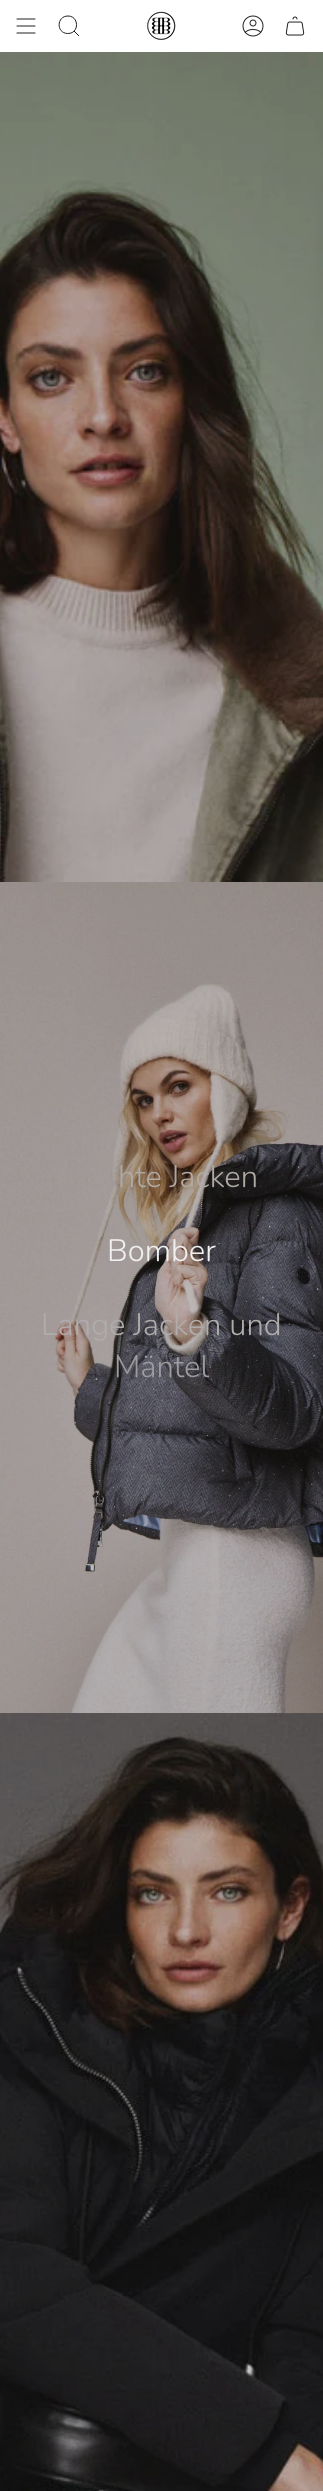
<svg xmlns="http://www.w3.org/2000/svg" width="323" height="2491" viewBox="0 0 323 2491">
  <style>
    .t1 { font: 300 31px Nunito; fill: #afa9a4; }
    .t2 { font: 300 31px Nunito; fill: #f0f0f0; }
    .t3 { font: 300 31px Nunito; fill: #b0acac; }
    .t4 { font: 300 31px Nunito; fill: #9c9b9f; }
  </style>
  <rect width="100%" height="100%" fill="#fff"/>
  <path d="M17 19H35M17 26H35M17 33H35" fill="none" stroke="#212121" stroke-linecap="round" stroke-linejoin="round"/>
  <path d="M68 16C79.5 16 79.5 34 67.5 33.5C56 33 56.5 16 68 16ZM74 31L79 36" fill="none" stroke="#212121"/>
  <image x="147" y="11" width="29" height="29" href="images/1.png"/>
  <image x="242" y="15" width="22" height="22" href="images/2.png"/>
  <image x="285" y="16" width="20" height="20" href="images/3.png"/>
  <image x="0" y="52" width="323" height="830" href="images/4.png"/>
  <image x="0" y="882" width="323" height="831" href="images/5.png"/>
  <image x="0" y="1713" width="323" height="778" href="images/6.png"/>
  <text x="118" y="1187" class="t1">hte Jacken</text>
  <text x="107" y="1261" class="t2">Bomber</text>
  <text x="41" y="1335" class="t3">Lange Jacken und</text>
  <text x="114" y="1377" class="t4">Mäntel</text>
</svg>
